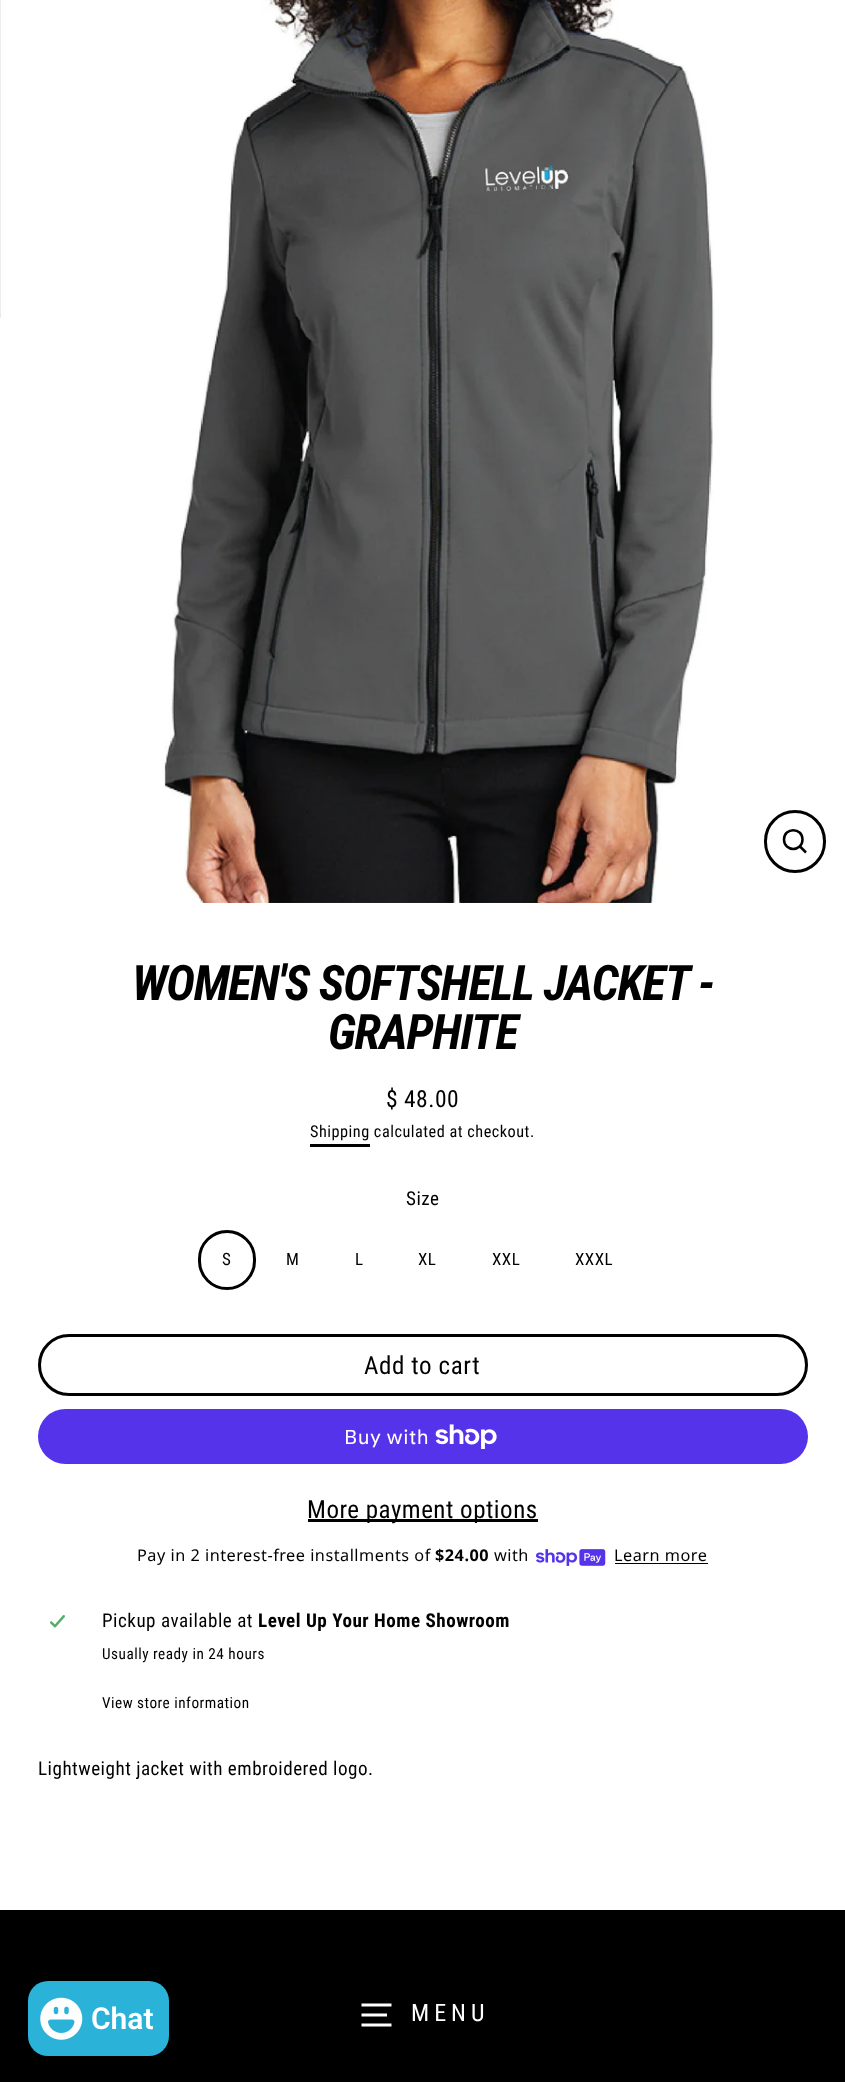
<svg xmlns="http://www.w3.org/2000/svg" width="845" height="2082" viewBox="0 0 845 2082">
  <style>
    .t1 { font: italic bold 48.9px Roboto Condensed; letter-spacing: -1.25px; fill: #000; }
    .t2 { font: 23.5px Roboto Condensed; letter-spacing: 0.5px; fill: #000; }
    .t3 { font: 16.25px Roboto Condensed; letter-spacing: 0.5px; fill: #000; }
    .t4 { font: 19.1px Roboto Condensed; letter-spacing: 0.5px; fill: #000; }
    .t5 { font: 17px Roboto Condensed; letter-spacing: 0.5px; fill: #000; }
    .t6 { font: 25px Roboto Condensed; letter-spacing: 0.6px; fill: #000; }
    .t7 { font: 20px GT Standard; letter-spacing: 0.5px; fill: #fff; }
    .t8 { font: 25px Roboto Condensed; letter-spacing: 0.5px; fill: #000; }
    .t9 { font: 16.25px Noto Sans; letter-spacing: 0.5px; fill: #000; }
    .t10 { font: bold 16.25px Noto Sans; letter-spacing: 0.5px; fill: #000; }
    .t11 { font: bold 19.1px Roboto Condensed; letter-spacing: 0.5px; fill: #000; }
    .t12 { font: 15.25px Roboto Condensed; letter-spacing: 0.5px; fill: #000; }
    .t13 { font: 24px Roboto Condensed; letter-spacing: 5px; fill: #fff; }
    .t14 { font: 600 30px Roboto; fill: #fff; }
  </style>
  <rect width="100%" height="100%" fill="#fff"/>
  <image x="0" y="0" width="715" height="903" href="images/1.png"/>
  <rect x="765.5" y="811.5" width="59" height="60" rx="29.5" fill="none" stroke="#000" stroke-width="3"/>
  <path d="M802.5 839.5C802.5 852 784 852 784 839.5C784 827 802.5 827 802.5 839.5ZM806 852.5L800 846.5" fill="none" stroke="#000" stroke-width="2.5"/>
  <text x="132" y="1000" class="t1">WOMEN'S SOFTSHELL JACKET -</text>
  <text x="328" y="1049" class="t1">GRAPHITE</text>
  <text x="386" y="1107" class="t2">$ 48.00</text>
  <text x="310" y="1137" class="t3">Shipping calculated at checkout.</text>
  <rect x="310" y="1144" width="60" height="3" fill="#000"/>
  <text x="406" y="1205" class="t4">Size</text>
  <rect x="199.5" y="1231.5" width="55" height="57" rx="27.5" fill="none" stroke="#000" stroke-width="3"/>
  <text x="222" y="1265" class="t5">S</text>
  <text x="286" y="1265" class="t5">M</text>
  <text x="355" y="1265" class="t5">L</text>
  <text x="418" y="1265" class="t5">XL</text>
  <text x="492" y="1265" class="t5">XXL</text>
  <text x="575" y="1265" class="t5">XXXL</text>
  <rect x="39.5" y="1335.5" width="767" height="59" rx="29.5" fill="none" stroke="#000" stroke-width="3"/>
  <text x="364" y="1374" class="t6">Add to cart</text>
  <rect x="38" y="1409" width="770" height="55" rx="27.5" fill="#5433eb"/>
  <text x="344" y="1444" class="t7">Buy with</text>
  <image x="435" y="1424" width="62" height="25" href="images/2.png"/>
  <rect x="308" y="1519" width="230" height="3" fill="#000"/>
  <text x="307" y="1518" class="t8">More payment options</text>
  <text x="137" y="1561" class="t9">Pay in 2 interest-free installments of</text>
  <text x="435" y="1561" class="t10">$24.00</text>
  <text x="494" y="1561" class="t9">with</text>
  <image x="536" y="1549" width="70" height="17" href="images/3.png"/>
  <text x="614" y="1561" class="t9">Learn more</text>
  <rect x="615" y="1563" width="93" height="1" fill="#000"/>
  <image x="50" y="1615" width="15" height="13" href="images/4.png"/>
  <text x="102" y="1627" class="t4">Pickup available at</text>
  <text x="258" y="1627" class="t11">Level Up Your Home Showroom</text>
  <text x="102" y="1659" class="t12">Usually ready in 24 hours</text>
  <text x="102" y="1708" class="t12">View store information</text>
  <text x="38" y="1775" class="t4">Lightweight jacket with embroidered logo.</text>
  <rect x="0" y="1910" width="845" height="172" fill="#000"/>
  <path d="M361.5 2005H391.5M361.5 2015H387M361.5 2025H391.5" fill="none" stroke="#fff" stroke-width="2.9"/>
  <text x="411" y="2021" class="t13">MENU</text>
  <rect x="28" y="1981" width="141" height="75" rx="20" fill="#2ab2d8"/>
  <image x="40" y="1997" width="43" height="43" href="images/5.png"/>
  <text x="91" y="2029" class="t14">Chat</text>
</svg>
